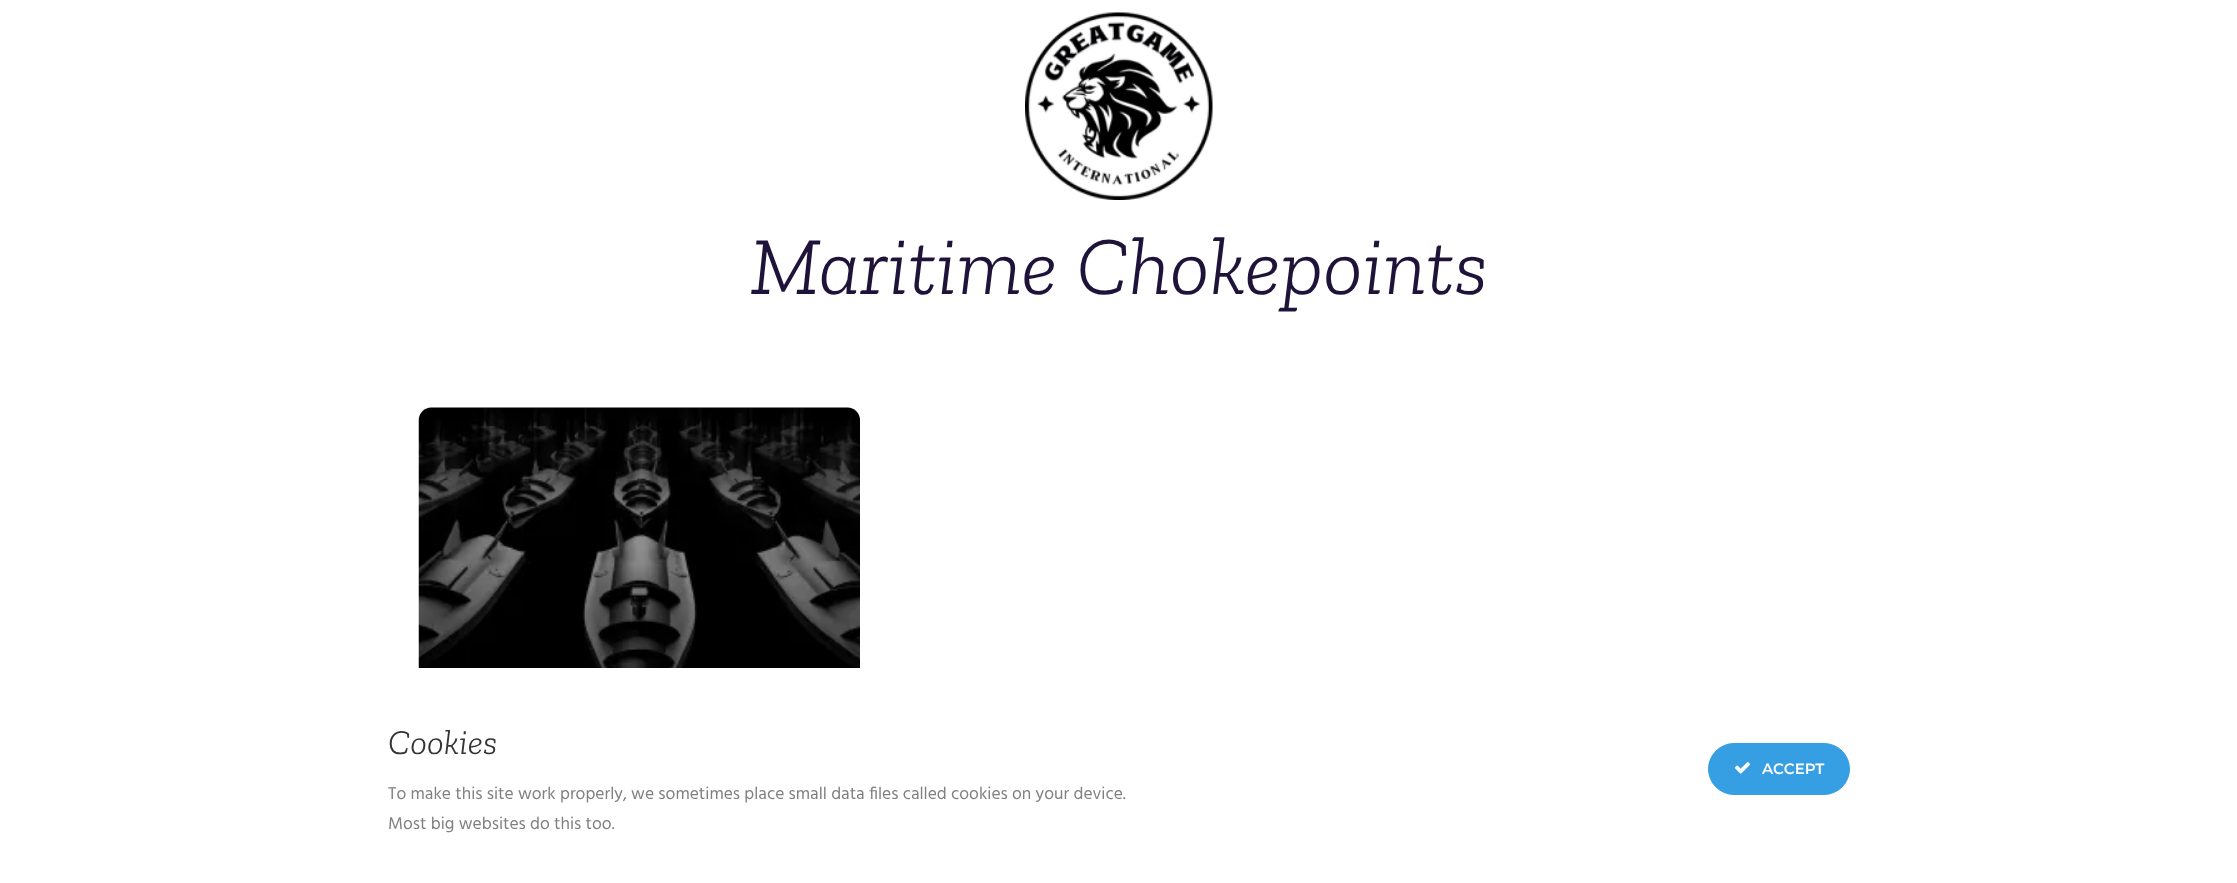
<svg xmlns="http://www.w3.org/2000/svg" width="2237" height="883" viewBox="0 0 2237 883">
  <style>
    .t1 { font: italic 300 82.5px Zilla Slab; fill: #20133a; }
    .t2 { font: italic 300 35px Zilla Slab; fill: #333; }
    .t3 { font: 17.5px Hind; fill: #808080; }
    .t4 { font: 600 15px Montserrat; fill: #fff; }
  </style>
  <rect width="100%" height="100%" fill="#fff"/>
  <image x="1025" y="12" width="188" height="188" href="images/1.png"/>
  <text x="750" y="294" class="t1">Maritime Chokepoints</text>
  <image x="418" y="407" width="442" height="261" href="images/2.png"/>
  <text x="388" y="754" class="t2">Cookies</text>
  <text x="388" y="799" class="t3">To make this site work properly, we sometimes place small data files called cookies on your device.</text>
  <text x="388" y="829" class="t3">Most big websites do this too.</text>
  <rect x="1708.5" y="743.5" width="141" height="51" rx="25.5" fill="#369ee3" stroke="#369ee3"/>
  <image x="1735" y="762" width="15" height="12" href="images/3.png"/>
  <text x="1762" y="774" class="t4">ACCEPT</text>
</svg>
